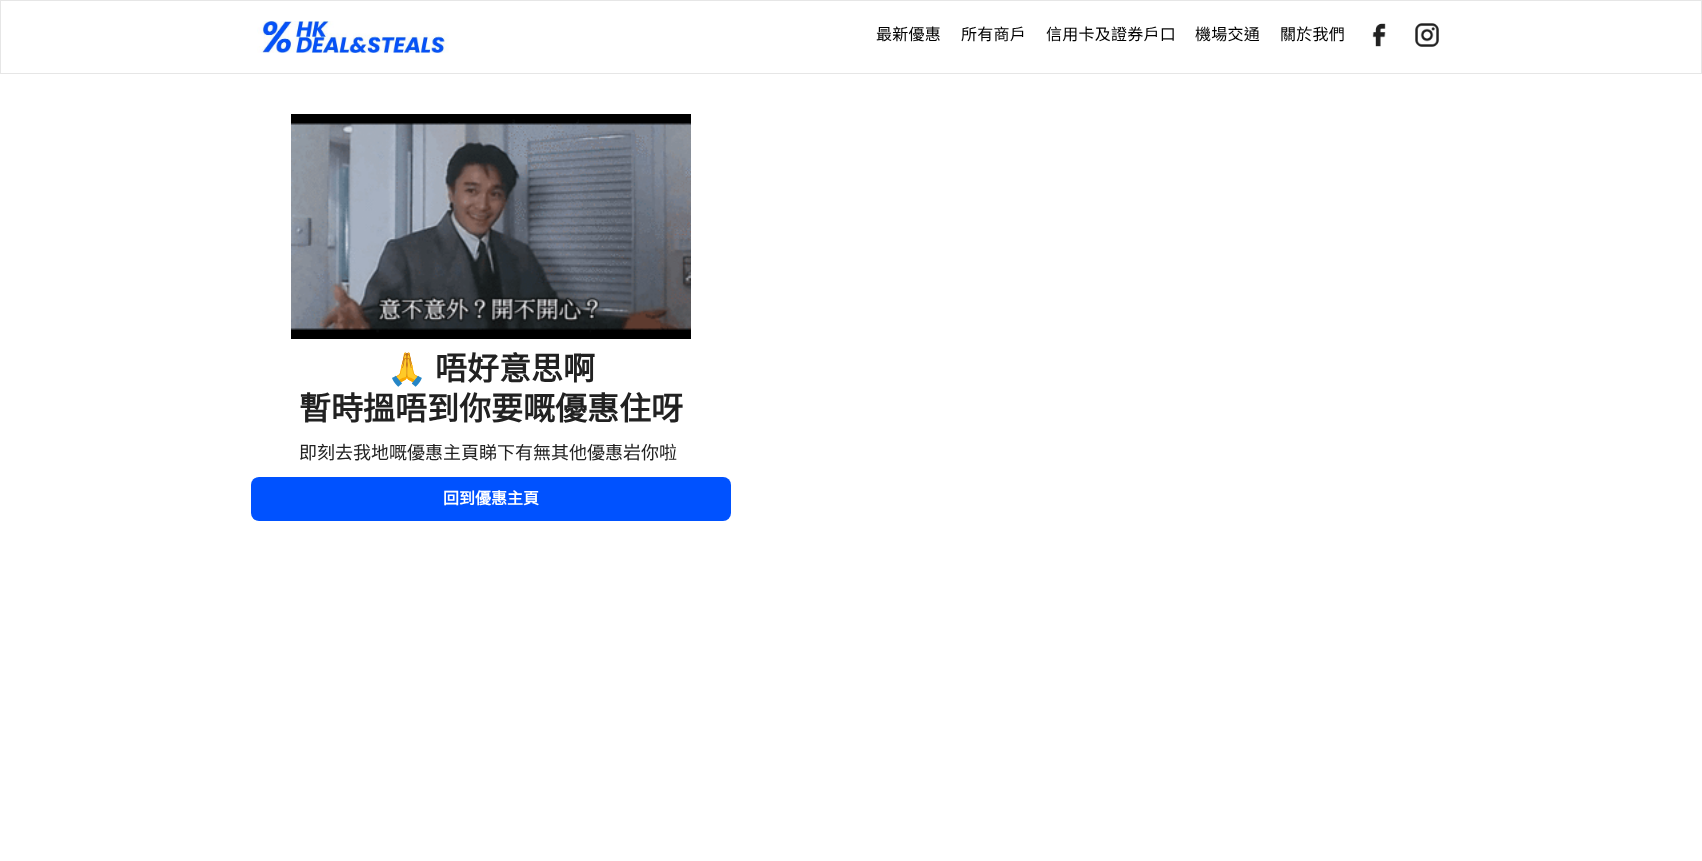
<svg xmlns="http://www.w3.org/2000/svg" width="1702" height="861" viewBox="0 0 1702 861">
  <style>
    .t1 { font: 16px Noto Sans CJK HK; letter-spacing: 0.25px; fill: #000; }
    .t2 { font: bold 32px Noto Color Emoji; fill: #212121; }
    .t3 { font: bold 32px Noto Sans CJK HK; fill: #212121; }
    .t4 { font: 18px Noto Sans CJK HK; fill: #212121; }
    .t5 { font: bold 16px Noto Sans CJK HK; fill: #fff; }
  </style>
  <rect width="100%" height="100%" fill="#fff"/>
  <rect x="0.5" y="0.5" width="1701" height="73" fill="none" stroke="#e6e6e6"/>
  <image x="257" y="21" width="192" height="32" href="images/1.png"/>
  <text x="876" y="40" class="t1">最新優惠</text>
  <text x="961" y="40" class="t1">所有商戶</text>
  <text x="1046" y="40" class="t1">信用卡及證券戶口</text>
  <text x="1195" y="40" class="t1">機場交通</text>
  <text x="1280" y="40" class="t1">關於我們</text>
  <image x="1372" y="23" width="14" height="24" href="images/2.png"/>
  <image x="1415" y="23" width="24" height="24" href="images/3.png"/>
  <image x="291" y="114" width="400" height="225" href="images/4.png"/>
  <text x="387" y="380" class="t2">🙏</text>
  <text x="435" y="380" class="t3">唔好意思啊</text>
  <text x="299" y="420" class="t3">暫時搵唔到你要嘅優惠住呀</text>
  <text x="299" y="459" class="t4">即刻去我地嘅優惠主頁睇下有無其他優惠岩你啦</text>
  <rect x="251" y="477" width="480" height="44" rx="8" fill="#0052ff"/>
  <text x="443" y="504" class="t5">回到優惠主頁</text>
</svg>
